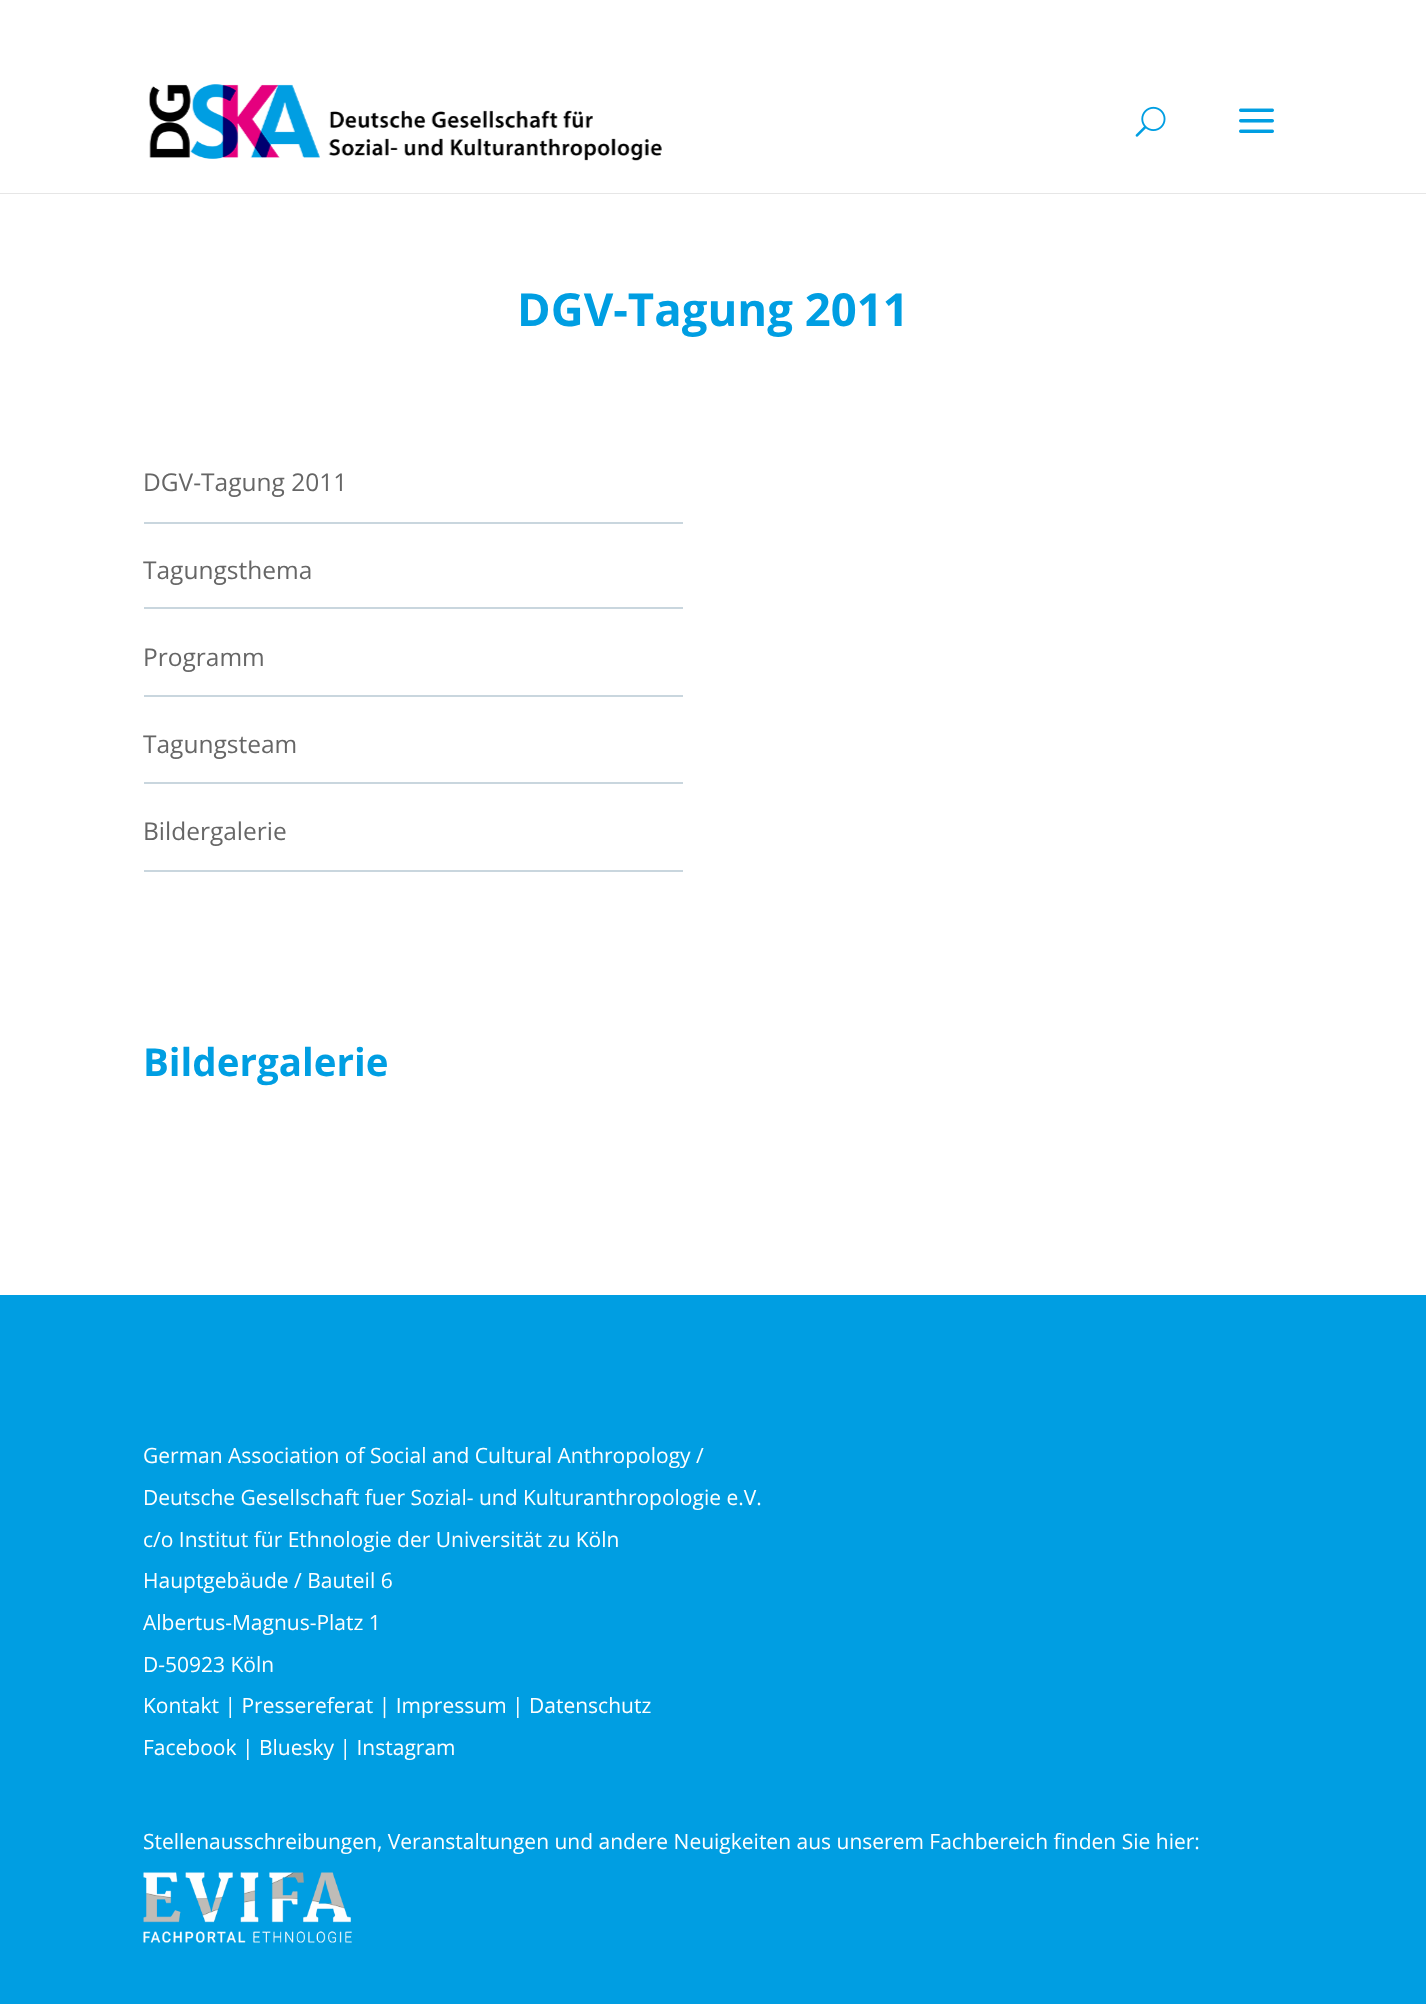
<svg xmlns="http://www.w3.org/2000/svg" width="1426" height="2004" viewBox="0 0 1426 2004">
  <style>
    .t1 { font: bold 45.5px Open Sans; fill: #009ee2; }
    .t2 { font: 24.5px Open Sans; fill: #666; }
    .t3 { font: bold 38.5px Open Sans; fill: #009ee2; }
    .t4 { font: 21px Open Sans; fill: #fff; }
  </style>
  <rect width="100%" height="100%" fill="#fff"/>
  <rect x="0" y="193" width="1426" height="1" fill="#e6e6e6"/>
  <image x="149" y="84" width="513" height="77" href="images/1.png"/>
  <image x="1135" y="106" width="31" height="31" href="images/2.png"/>
  <image x="1239" y="108" width="35" height="25" href="images/3.png"/>
  <text x="517" y="326" class="t1">DGV-Tagung 2011</text>
  <rect x="144" y="522" width="539" height="2" fill="#c9d6de"/>
  <text x="143" y="491" class="t2">DGV-Tagung 2011</text>
  <rect x="144" y="607" width="539" height="2" fill="#c9d6de"/>
  <text x="143" y="579" class="t2">Tagungsthema</text>
  <rect x="144" y="695" width="539" height="2" fill="#c9d6de"/>
  <text x="143" y="666" class="t2">Programm</text>
  <rect x="144" y="782" width="539" height="2" fill="#c9d6de"/>
  <text x="143" y="753" class="t2">Tagungsteam</text>
  <rect x="144" y="870" width="539" height="2" fill="#c9d6de"/>
  <text x="143" y="840" class="t2">Bildergalerie</text>
  <text x="143" y="1076" class="t3">Bildergalerie</text>
  <rect x="0" y="1295" width="1426" height="709" fill="#009ee2"/>
  <text x="143" y="1463" class="t4">German Association of Social and Cultural Anthropology /</text>
  <text x="143" y="1505" class="t4">Deutsche Gesellschaft fuer Sozial- und Kulturanthropologie e.V.</text>
  <text x="143" y="1547" class="t4">c/o Institut für Ethnologie der Universität zu Köln</text>
  <text x="143" y="1588" class="t4">Hauptgebäude / Bauteil 6</text>
  <text x="143" y="1630" class="t4">Albertus-Magnus-Platz 1</text>
  <text x="143" y="1672" class="t4">D-50923 Köln</text>
  <text x="143" y="1713" class="t4">Kontakt | Pressereferat | Impressum | Datenschutz</text>
  <text x="143" y="1755" class="t4">Facebook | Bluesky | Instagram</text>
  <text x="143" y="1849" class="t4">Stellenausschreibungen, Veranstaltungen und andere Neuigkeiten aus unserem Fachbereich finden Sie hier:</text>
  <image x="143" y="1872" width="209" height="71" href="images/4.png"/>
</svg>
